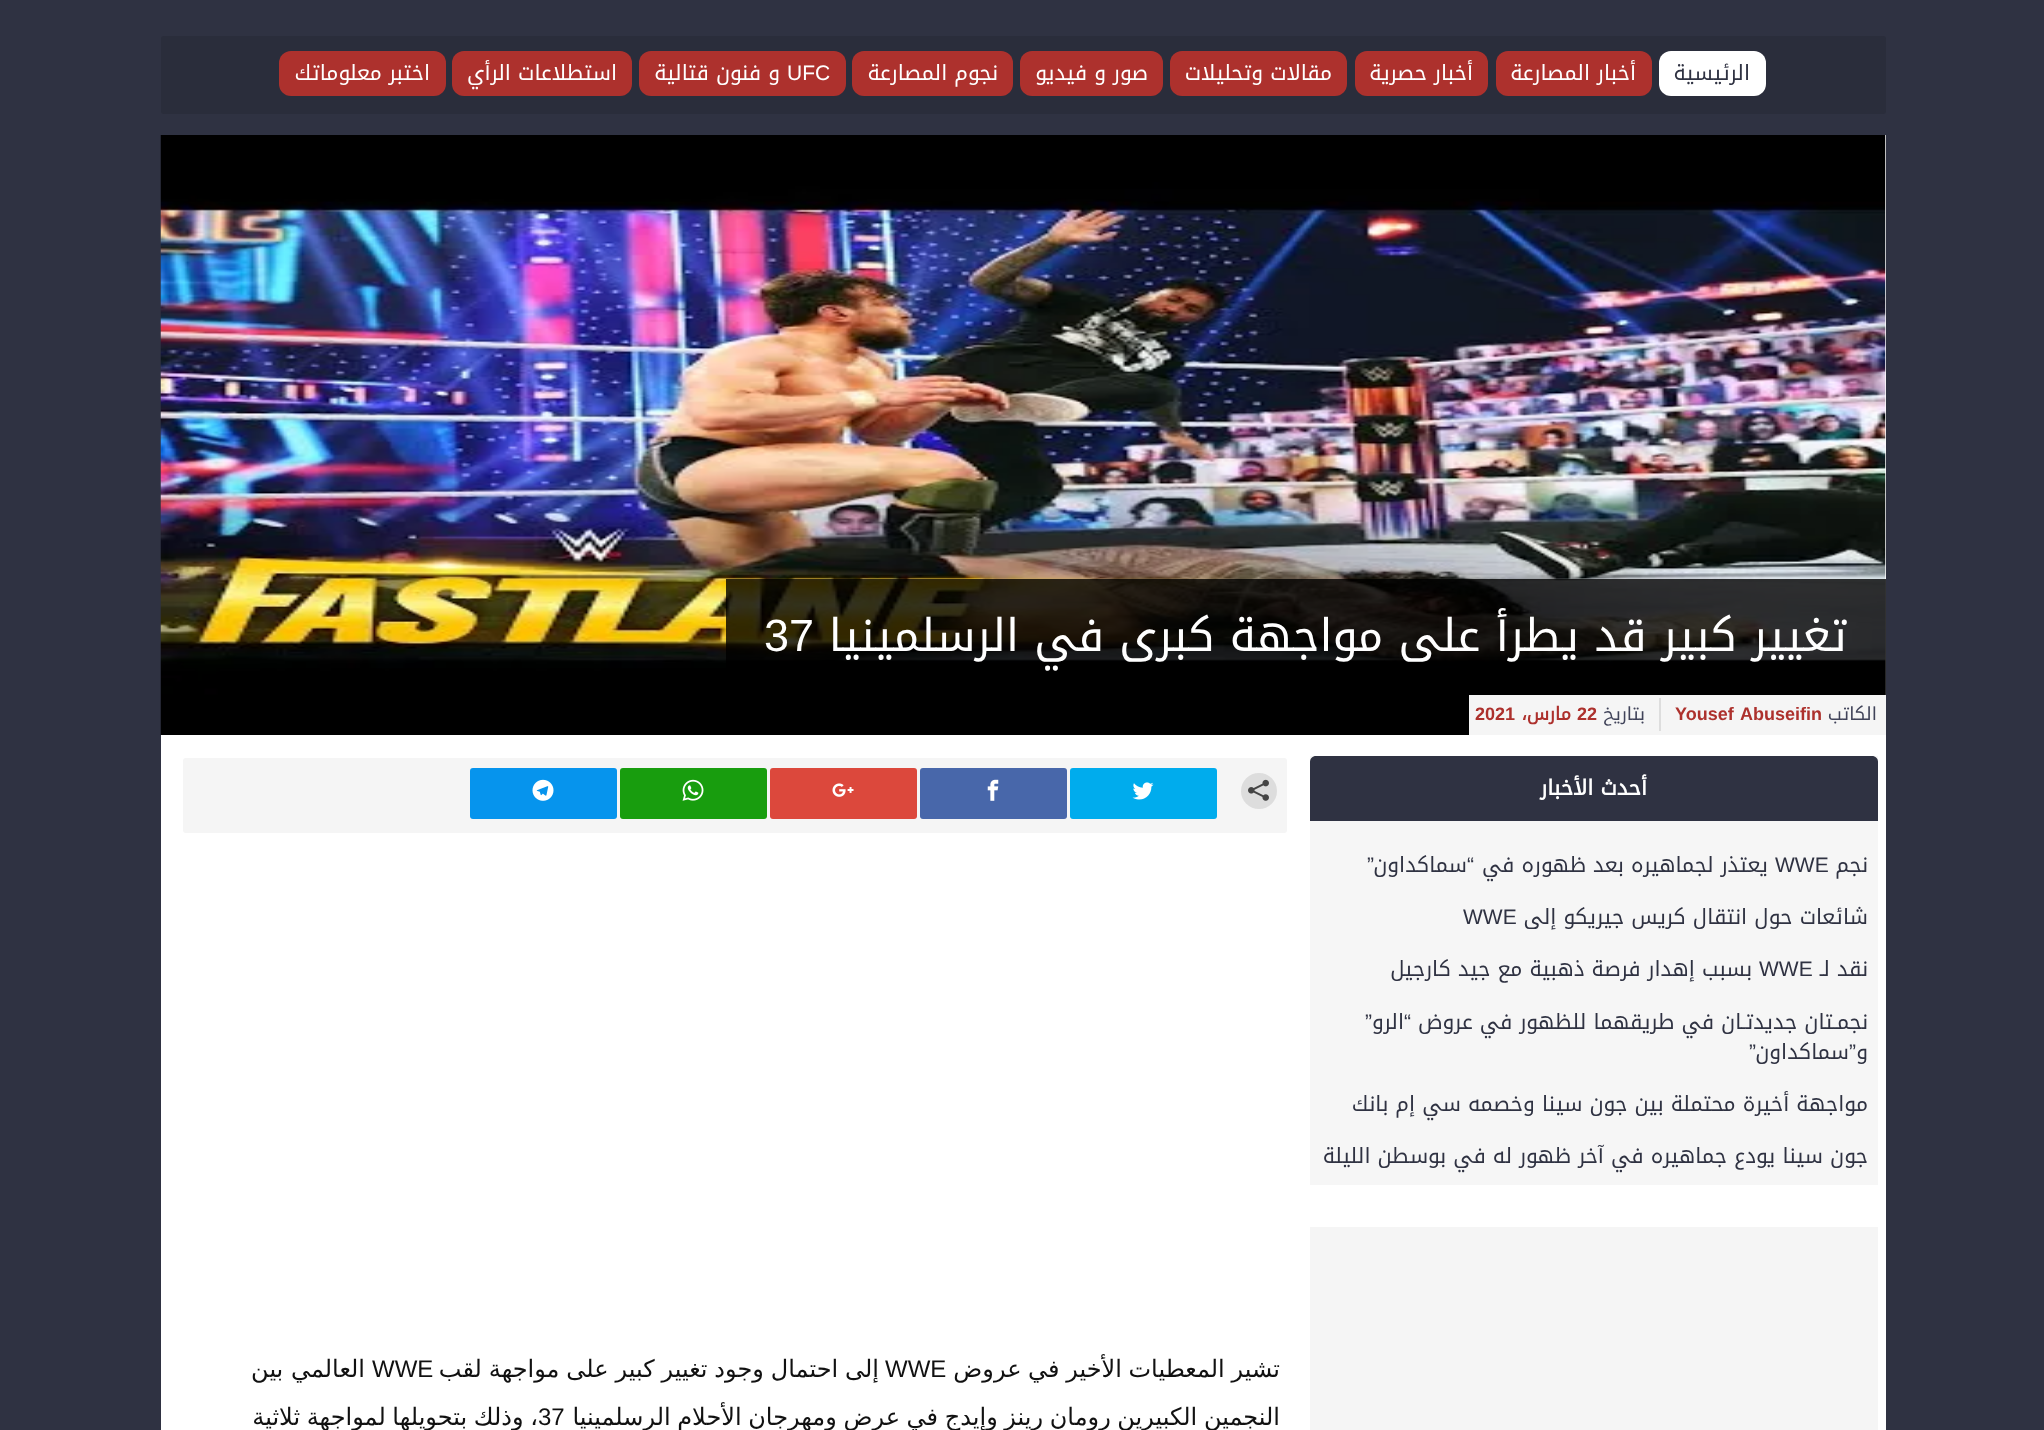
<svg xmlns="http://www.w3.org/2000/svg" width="2044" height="1430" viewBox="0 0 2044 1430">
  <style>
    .t1 { font: 21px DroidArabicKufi; direction: rtl; fill: #2f3242; }
    .t2 { font: 21px DroidArabicKufi; direction: rtl; fill: #fff; }
    .t3 { font: 21px Liberation Sans; fill: #fff; }
    .t4 { font: 45px DroidArabicKufi; direction: rtl; fill: #fff; }
    .t5 { font: 45px Liberation Sans; fill: #fff; }
    .t6 { font: 18px DroidArabicKufi; direction: rtl; fill: #404359; }
    .t7 { font: bold 18px Liberation Sans; fill: #ad312d; }
    .t8 { font: bold 18px DroidArabicKufi; direction: rtl; fill: #ad312d; }
    .t9 { font: bold 21px DroidArabicKufi; direction: rtl; fill: #fff; }
    .t10 { font: 21px Liberation Sans; fill: #2f3242; }
    .t11 { font: 21px Liberation Sans; direction: rtl; fill: #2f3242; }
    .t12 { font: 24px DejaVu Sans; direction: rtl; fill: #111; }
    .t13 { font: 24px Liberation Sans; fill: #111; }
  </style>
  <rect width="100%" height="100%" fill="#2f3242"/>
  <rect x="161" y="36" width="1725" height="78" rx="3" fill="#2a2d3b"/>
  <rect x="1659" y="51" width="107" height="45" rx="12" fill="#fff"/>
  <text x="1750" y="80" class="t1">الرئيسية</text>
  <rect x="1496" y="51" width="156" height="45" rx="12" fill="#ad312d"/>
  <text x="1636" y="80" class="t2">أخبار المصارعة</text>
  <rect x="1355" y="51" width="133" height="45" rx="12" fill="#ad312d"/>
  <text x="1473" y="80" class="t2">أخبار حصرية</text>
  <rect x="1170" y="51" width="177" height="45" rx="12" fill="#ad312d"/>
  <text x="1332" y="80" class="t2">مقالات وتحليلات</text>
  <rect x="1020" y="51" width="143" height="45" rx="12" fill="#ad312d"/>
  <text x="1148" y="80" class="t2">صور و فيديو</text>
  <rect x="852" y="51" width="161" height="45" rx="12" fill="#ad312d"/>
  <text x="998" y="80" class="t2">نجوم المصارعة</text>
  <rect x="639" y="51" width="207" height="45" rx="12" fill="#ad312d"/>
  <text x="787" y="80" class="t3">UFC</text>
  <text x="780" y="80" class="t2">و فنون قتالية</text>
  <rect x="452" y="51" width="180" height="45" rx="12" fill="#ad312d"/>
  <text x="617" y="80" class="t2">استطلاعات الرأي</text>
  <rect x="279" y="51" width="167" height="45" rx="12" fill="#ad312d"/>
  <text x="430" y="80" class="t2">اختبر معلوماتك</text>
  <rect x="161" y="135" width="1725" height="1295" fill="#fff"/>
  <image x="160" y="135" width="1726" height="600" href="images/1.png"/>
  <rect x="726" y="579" width="1160" height="116" fill="#000000cc"/>
  <text x="1847" y="651" class="t4">تغيير كبير قد يطرأ على مواجهة كبرى في الرسلمينيا</text>
  <text x="764" y="651" class="t5">37</text>
  <rect x="1469" y="695" width="417" height="40" fill="#f5f5f5"/>
  <text x="1877" y="720" class="t6">الكاتب</text>
  <text x="1675" y="720" word-spacing="2" class="t7">Yousef Abuseifin</text>
  <rect x="1659" y="698" width="2" height="33" fill="#ddd"/>
  <text x="1645" y="720" class="t6">بتاريخ</text>
  <text x="1577" y="720" class="t7">22</text>
  <text x="1571" y="720" class="t8">مارس،</text>
  <text x="1475" y="720" class="t7">2021</text>
  <rect x="1310" y="756" width="568" height="429" fill="#f6f6f6"/>
  <path d="M1316 756H1872C1875.5 756 1878 758.5 1878 762V821H1310V762C1310 758.5 1312.5 756 1316 756Z" fill="#2f3242"/>
  <text x="1647" y="795" class="t9">أحدث الأخبار</text>
  <text x="1868" y="872" class="t1">نجم</text>
  <text x="1775" y="872" class="t10">WWE</text>
  <text x="1768" y="872" class="t1">يعتذر لجماهيره بعد ظهوره في</text>
  <text x="1474" y="872" class="t11">“</text>
  <text x="1467" y="872" class="t1">سماكداون</text>
  <text x="1374" y="872" class="t11">”</text>
  <text x="1868" y="924" class="t1">شائعات حول انتقال كريس جيريكو إلى</text>
  <text x="1463" y="924" class="t10">WWE</text>
  <text x="1868" y="976" class="t1">نقد لـ</text>
  <text x="1759" y="976" class="t10">WWE</text>
  <text x="1752" y="976" class="t1">بسبب إهدار فرصة ذهبية مع جيد كارجيل</text>
  <text x="1868" y="1029" class="t1">نجمـتان جديدتـان في طريقهما للظهور في عروض</text>
  <text x="1411" y="1029" class="t11">“</text>
  <text x="1404" y="1029" class="t1">الرو</text>
  <text x="1372" y="1029" class="t11">”</text>
  <text x="1856" y="1059" class="t11">”</text>
  <text x="1849" y="1059" class="t1">سماكداون</text>
  <text x="1756" y="1059" class="t11">”</text>
  <text x="1868" y="1059" class="t1">و</text>
  <text x="1868" y="1111" class="t1">مواجهة أخيرة محتملة بين جون سينا وخصمه سي إم بانك</text>
  <text x="1868" y="1163" class="t1">جون سينا يودع جماهيره في آخر ظهور له في بوسطن الليلة</text>
  <rect x="1310" y="1227" width="568" height="203" fill="#f5f5f5"/>
  <rect x="183" y="758" width="1104" height="75" rx="3" fill="#f5f5f5"/>
  <circle cx="1259" cy="791" r="18" fill="#ddd"/>
  <image x="1248" y="779" width="21" height="22" href="images/2.png"/>
  <rect x="1070" y="768" width="147" height="51" rx="3" fill="#00aced"/>
  <image x="1132" y="782" width="22" height="18" href="images/3.png"/>
  <rect x="920" y="768" width="147" height="51" rx="3" fill="#4867aa"/>
  <image x="987" y="779" width="12" height="22" href="images/4.png"/>
  <rect x="770" y="768" width="147" height="51" rx="3" fill="#dc483c"/>
  <image x="832" y="783" width="22" height="14" href="images/5.png"/>
  <rect x="620" y="768" width="147" height="51" rx="3" fill="#189d0e"/>
  <image x="682" y="779" width="22" height="22" href="images/6.png"/>
  <rect x="470" y="768" width="147" height="51" rx="3" fill="#0694ed"/>
  <image x="532" y="779" width="22" height="22" href="images/7.png"/>
  <text x="1280" y="1377" word-spacing="-1" class="t12">تشير المعطيات الأخير في عروض</text>
  <text x="885" y="1377" class="t13">WWE</text>
  <text x="879" y="1377" word-spacing="-0.75" class="t12">إلى احتمال وجود تغيير كبير على مواجهة لقب</text>
  <text x="372" y="1377" class="t13">WWE</text>
  <text x="365" y="1377" class="t12">العالمي بين</text>
  <text x="1280" y="1425" word-spacing="-1" class="t12">النجمين الكبيرين رومان رينز وإيدج في عرض ومهرجان الأحلام الرسلمينيا</text>
  <text x="538" y="1425" word-spacing="-1" class="t12">، وذلك بتحويلها لمواجهة ثلاثية</text>
  <text x="538" y="1425" class="t13">37</text>
</svg>
